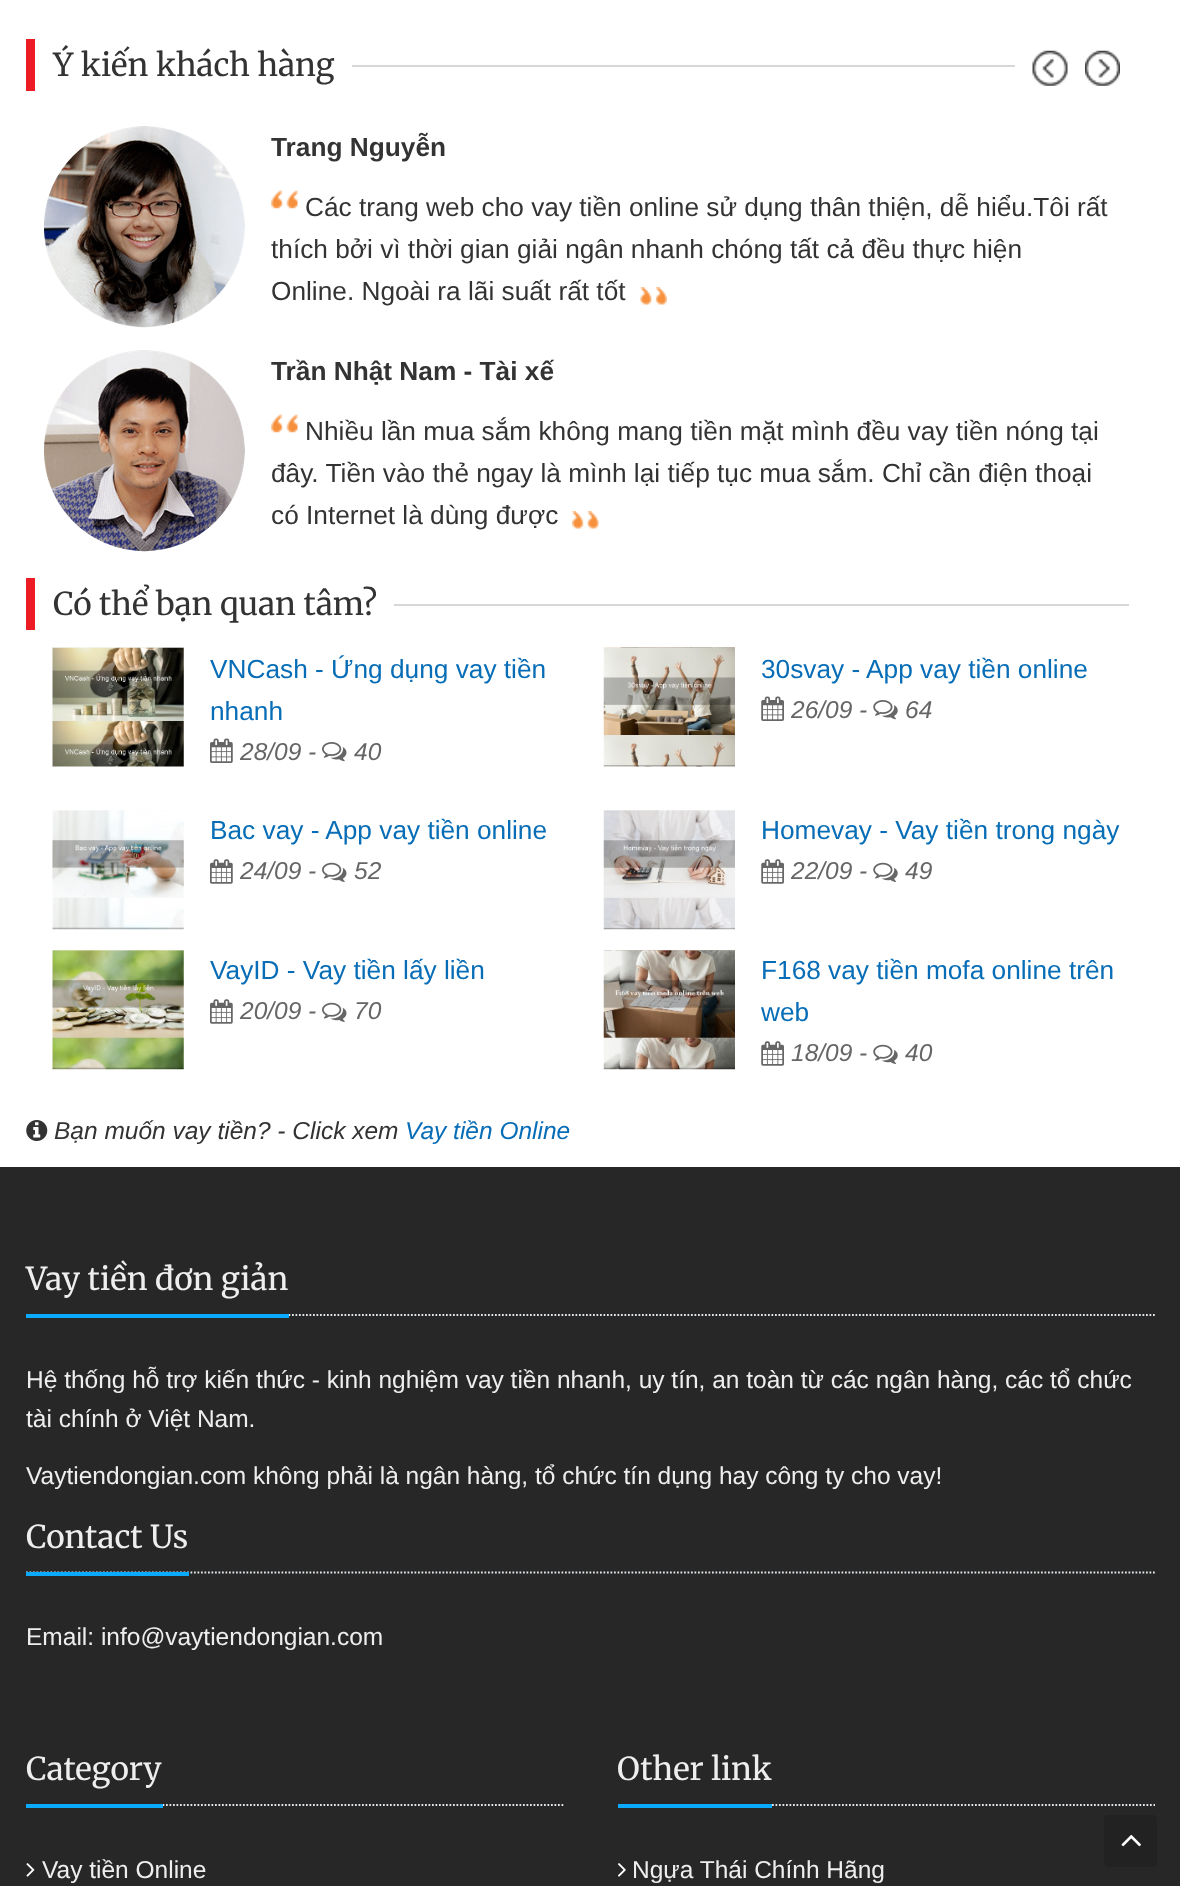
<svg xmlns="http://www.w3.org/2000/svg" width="1180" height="1886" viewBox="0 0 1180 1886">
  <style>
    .t1 { font: 300 31.5px Merriweather; fill: #333; }
    .t2 { font: bold 26.25px Liberation Sans; fill: #333; }
    .t3 { font: 26.25px Liberation Sans; fill: #333; }
    .t4 { font: 26.25px Liberation Sans; fill: #076db6; }
    .t5 { font: italic 24.5px Liberation Sans; fill: #666; }
    .t6 { font: italic 24.5px Liberation Sans; fill: #333; }
    .t7 { font: italic 24.5px Liberation Sans; fill: #076db6; }
    .t8 { font: 300 31.5px Merriweather; fill: #eee; }
    .t9 { font: 24.5px Liberation Sans; fill: #eee; }
  </style>
  <rect width="100%" height="100%" fill="#fff"/>
  <rect x="26" y="39" width="9" height="52" fill="#ed1c24"/>
  <text x="53" y="76" class="t1">Ý kiến khách hàng</text>
  <rect x="352" y="65" width="663" height="2" fill="#d7d7d7"/>
  <image x="1032" y="50" width="36" height="36" href="images/1.png"/>
  <image x="1085" y="50" width="35" height="36" href="images/2.png"/>
  <image x="44" y="126" width="201" height="202" href="images/3.png"/>
  <text x="271" y="156" class="t2">Trang Nguyễn</text>
  <image x="271" y="190" width="27" height="19" href="images/4.png"/>
  <text x="305" y="216" class="t3">Các trang web cho vay tiền online sử dụng thân thiện, dễ hiểu.Tôi rất</text>
  <text x="271" y="258" class="t3">thích bởi vì thời gian giải ngân nhanh chóng tất cả đều thực hiện</text>
  <text x="271" y="300" class="t3">Online. Ngoài ra lãi suất rất tốt</text>
  <image x="640" y="287" width="27" height="18" href="images/5.png"/>
  <image x="44" y="350" width="201" height="202" href="images/6.png"/>
  <text x="271" y="380" class="t2">Trần Nhật Nam - Tài xế</text>
  <image x="271" y="414" width="27" height="19" href="images/4.png"/>
  <text x="305" y="440" class="t3">Nhiều lần mua sắm không mang tiền mặt mình đều vay tiền nóng tại</text>
  <text x="271" y="482" class="t3">đây. Tiền vào thẻ ngay là mình lại tiếp tục mua sắm. Chỉ cần điện thoại</text>
  <text x="271" y="524" class="t3">có Internet là dùng được</text>
  <image x="572" y="511" width="27" height="18" href="images/7.png"/>
  <rect x="26" y="578" width="9" height="52" fill="#ed1c24"/>
  <text x="53" y="615" class="t1">Có thể bạn quan tâm?</text>
  <rect x="394" y="604" width="735" height="2" fill="#d7d7d7"/>
  <image x="52" y="647" width="132" height="120" href="images/8.png"/>
  <text x="210" y="678" class="t4">VNCash - Ứng dụng vay tiền</text>
  <text x="210" y="720" class="t4">nhanh</text>
  <image x="210" y="738" width="23" height="25" href="images/9.png"/>
  <text x="240" y="760" class="t5">28/09 -</text>
  <image x="322" y="742" width="25" height="20" href="images/10.png"/>
  <text x="354" y="760" class="t5">40</text>
  <image x="603" y="647" width="132" height="120" href="images/11.png"/>
  <text x="761" y="678" class="t4">30svay - App vay tiền online</text>
  <image x="761" y="696" width="23" height="25" href="images/12.png"/>
  <text x="791" y="718" class="t5">26/09 -</text>
  <image x="873" y="700" width="25" height="20" href="images/13.png"/>
  <text x="905" y="718" class="t5">64</text>
  <image x="52" y="810" width="132" height="120" href="images/14.png"/>
  <text x="210" y="839" class="t4">Bac vay - App vay tiền online</text>
  <image x="210" y="859" width="23" height="25" href="images/15.png"/>
  <text x="240" y="879" class="t5">24/09 -</text>
  <image x="322" y="862" width="25" height="20" href="images/16.png"/>
  <text x="354" y="879" class="t5">52</text>
  <image x="603" y="810" width="132" height="120" href="images/17.png"/>
  <text x="761" y="839" class="t4">Homevay - Vay tiền trong ngày</text>
  <image x="761" y="859" width="23" height="25" href="images/18.png"/>
  <text x="791" y="879" class="t5">22/09 -</text>
  <image x="873" y="862" width="25" height="20" href="images/19.png"/>
  <text x="905" y="879" class="t5">49</text>
  <image x="52" y="950" width="132" height="120" href="images/20.png"/>
  <text x="210" y="979" class="t4">VayID - Vay tiền lấy liền</text>
  <image x="210" y="999" width="23" height="25" href="images/15.png"/>
  <text x="240" y="1019" class="t5">20/09 -</text>
  <image x="322" y="1002" width="25" height="20" href="images/16.png"/>
  <text x="354" y="1019" class="t5">70</text>
  <image x="603" y="950" width="132" height="120" href="images/21.png"/>
  <text x="761" y="979" class="t4">F168 vay tiền mofa online trên</text>
  <text x="761" y="1021" class="t4">web</text>
  <image x="761" y="1041" width="23" height="25" href="images/18.png"/>
  <text x="791" y="1061" class="t5">18/09 -</text>
  <image x="873" y="1044" width="25" height="20" href="images/19.png"/>
  <text x="905" y="1061" class="t5">40</text>
  <image x="26" y="1120" width="22" height="21" href="images/22.png"/>
  <text x="54" y="1139" class="t6">Bạn muốn vay tiền? - Click xem</text>
  <text x="405" y="1139" class="t7">Vay tiền Online</text>
  <rect x="0" y="1167" width="1180" height="719" fill="#272727"/>
  <path d="M26 1315H1155" fill="none" stroke="#e4e9f0" stroke-width="1.8" stroke-dasharray="1.75 1.75"/>
  <rect x="26" y="1314" width="263" height="4" fill="#0caafc"/>
  <text x="26" y="1290" class="t8">Vay tiền đơn giản</text>
  <text x="26" y="1388" class="t9">Hệ thống hỗ trợ kiến thức - kinh nghiệm vay tiền nhanh, uy tín, an toàn từ các ngân hàng, các tổ chức</text>
  <text x="26" y="1427" class="t9">tài chính ở Việt Nam.</text>
  <text x="26" y="1484" class="t9">Vaytiendongian.com không phải là ngân hàng, tổ chức tín dụng hay công ty cho vay!</text>
  <path d="M26 1572.5H1155" fill="none" stroke="#e4e9f0" stroke-width="1.8" stroke-dasharray="1.75 1.75"/>
  <rect x="26" y="1572" width="163" height="4" fill="#0caafc"/>
  <text x="26" y="1548" class="t8">Contact Us</text>
  <text x="26" y="1645" class="t9">Email: info@vaytiendongian.com</text>
  <path d="M26 1805H565" fill="none" stroke="#e4e9f0" stroke-width="1.8" stroke-dasharray="1.75 1.75"/>
  <rect x="26" y="1804" width="137" height="4" fill="#0caafc"/>
  <text x="26" y="1780" class="t8">Category</text>
  <image x="26" y="1863" width="9" height="14" href="images/23.png"/>
  <text x="42" y="1878" class="t9">Vay tiền Online</text>
  <path d="M618 1805H1155" fill="none" stroke="#e4e9f0" stroke-width="1.8" stroke-dasharray="1.75 1.75"/>
  <rect x="618" y="1804" width="154" height="4" fill="#0caafc"/>
  <text x="617" y="1780" class="t8">Other link</text>
  <image x="618" y="1863" width="8" height="14" href="images/24.png"/>
  <text x="632" y="1878" class="t9">Ngựa Thái Chính Hãng</text>
  <rect x="1104" y="1815" width="53" height="52" rx="5" fill="#222"/>
  <image x="1121" y="1834" width="20" height="13" href="images/25.png"/>
</svg>
